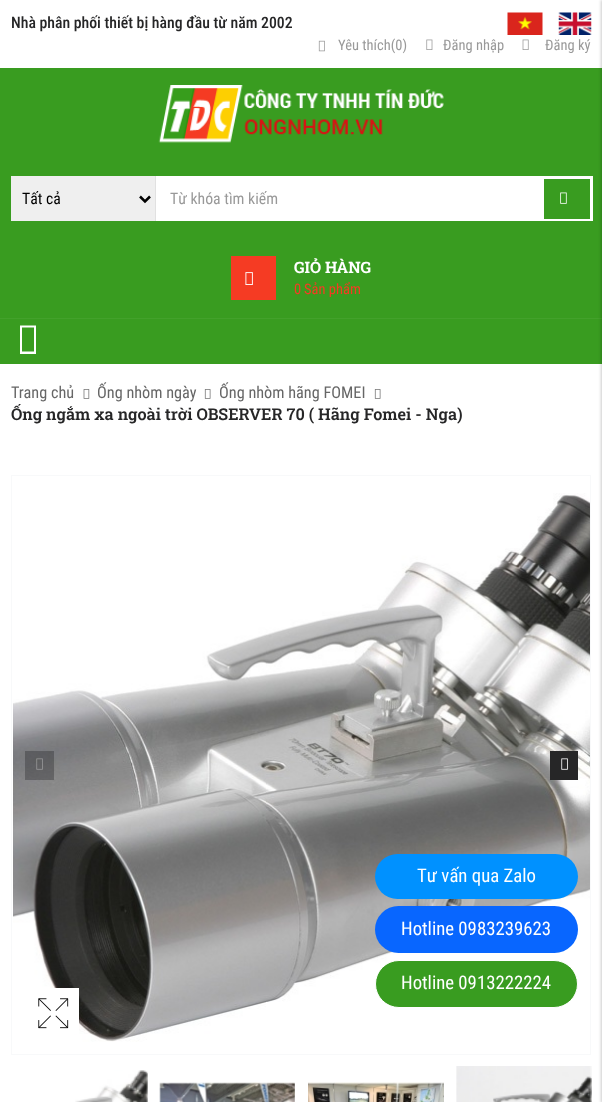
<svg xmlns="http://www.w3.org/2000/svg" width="602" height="1102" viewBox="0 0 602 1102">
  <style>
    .t1 { font: 500 15.75px Roboto Condensed; fill: #262627; }
    .t2 { font: 14.5px Roboto Condensed; fill: #999; }
    .t3 { font: 15.75px Roboto Condensed; fill: #000; }
    .t4 { font: 15.75px Roboto Condensed; fill: #999; }
    .t5 { font: bold 15.75px Roboto Slab; fill: #fff; }
    .t6 { font: 14.5px Roboto Condensed; fill: #f53b23; }
    .t7 { font: 16.25px Roboto Condensed; fill: #666; }
    .t8 { font: 600 16.25px Roboto Slab; fill: #262627; }
    .t9 { font: 18.75px Roboto Condensed; fill: #fff; }
  </style>
  <rect width="100%" height="100%" fill="#fff"/>
  <rect x="0" y="68" width="602" height="296" fill="#399c20"/>
  <text x="11" y="28" class="t1">Nhà phân phối thiết bị hàng đầu từ năm 2002</text>
  <image x="507" y="12" width="36" height="23" href="images/1.png"/>
  <image x="558" y="12" width="34" height="23" href="images/2.png"/>
  <image x="318" y="40" width="7" height="12" href="images/3.png"/>
  <text x="338" y="50" class="t2">Yêu thích(0)</text>
  <image x="426" y="39" width="7" height="11" href="images/4.png"/>
  <text x="443" y="50" class="t2">Đăng nhập</text>
  <image x="522" y="39" width="7" height="11" href="images/5.png"/>
  <text x="545" y="50" class="t2">Đăng ký</text>
  <image x="158" y="85" width="286" height="58" href="images/6.png"/>
  <rect x="11" y="176" width="144" height="45" fill="#efefef"/>
  <rect x="155" y="176" width="1" height="45" fill="#e1e1e1"/>
  <path d="M140 196.5L145 201.5L150 196.5" fill="none" stroke="#000" stroke-width="2.5"/>
  <text x="22" y="204" class="t3">Tất cả</text>
  <rect x="156" y="176" width="437" height="45" fill="#fff"/>
  <text x="170" y="204" class="t4">Từ khóa tìm kiếm</text>
  <rect x="544" y="179" width="46" height="40" fill="#399c20"/>
  <image x="560" y="192" width="7" height="12" href="images/7.png"/>
  <rect x="231" y="256" width="45" height="44" fill="#f53b23"/>
  <image x="245" y="272" width="8" height="13" href="images/8.png"/>
  <text x="294" y="273" class="t5">GIỎ HÀNG</text>
  <text x="294" y="294" class="t6">0</text>
  <text x="304" y="294" class="t6">Sản phẩm</text>
  <rect x="0" y="318" width="602" height="1" fill="#43a12b"/>
  <path d="M20 354V325.5H36V354ZM22 351.5H34V327.5H22Z" fill="#fff"/>
  <rect x="601" y="0" width="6" height="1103" fill="#00000033" filter="blur(1.5px)"/>
  <text x="11" y="398" class="t7">Trang chủ</text>
  <image x="83" y="389" width="7" height="10" href="images/9.png"/>
  <text x="97" y="398" class="t7">Ống nhòm ngày</text>
  <image x="204" y="389" width="7" height="10" href="images/10.png"/>
  <text x="219" y="398" class="t7">Ống nhòm hãng FOMEI</text>
  <image x="374" y="389" width="7" height="10" href="images/10.png"/>
  <text x="11" y="420" class="t8">Ống ngắm xa ngoài trời OBSERVER 70 ( Hãng Fomei - Nga)</text>
  <rect x="11.5" y="475.5" width="579" height="579" fill="none" stroke="#f8f9fa"/>
  <image x="13" y="493" width="577" height="549" href="images/11.png"/>
  <rect x="25" y="751" width="29" height="29" fill="#26262759"/>
  <image x="36" y="758" width="7" height="12" href="images/12.png"/>
  <rect x="550" y="751" width="28" height="29" fill="#262627"/>
  <image x="561" y="758" width="7" height="12" href="images/13.png"/>
  <rect x="50" y="988" width="29" height="46" fill="#fff"/>
  <image x="38" y="998" width="31" height="31" href="images/14.png"/>
  <image x="75" y="1070" width="73" height="32" href="images/15.png"/>
  <image x="159" y="1082" width="136" height="20" href="images/16.png"/>
  <image x="308" y="1082" width="136" height="20" href="images/17.png"/>
  <image x="456" y="1066" width="136" height="36" href="images/18.png"/>
  <rect x="375" y="854" width="203" height="45" rx="22.5" fill="#0091ff"/>
  <text x="417" y="882" class="t9">Tư vấn qua Zalo</text>
  <rect x="375" y="906" width="203" height="47" rx="23.5" fill="#0866ff"/>
  <text x="401" y="935" class="t9">Hotline 0983239623</text>
  <rect x="375.5" y="960.5" width="202" height="47" rx="23.5" fill="#399c20" stroke="#fff"/>
  <text x="401" y="989" class="t9">Hotline 0913222224</text>
</svg>
